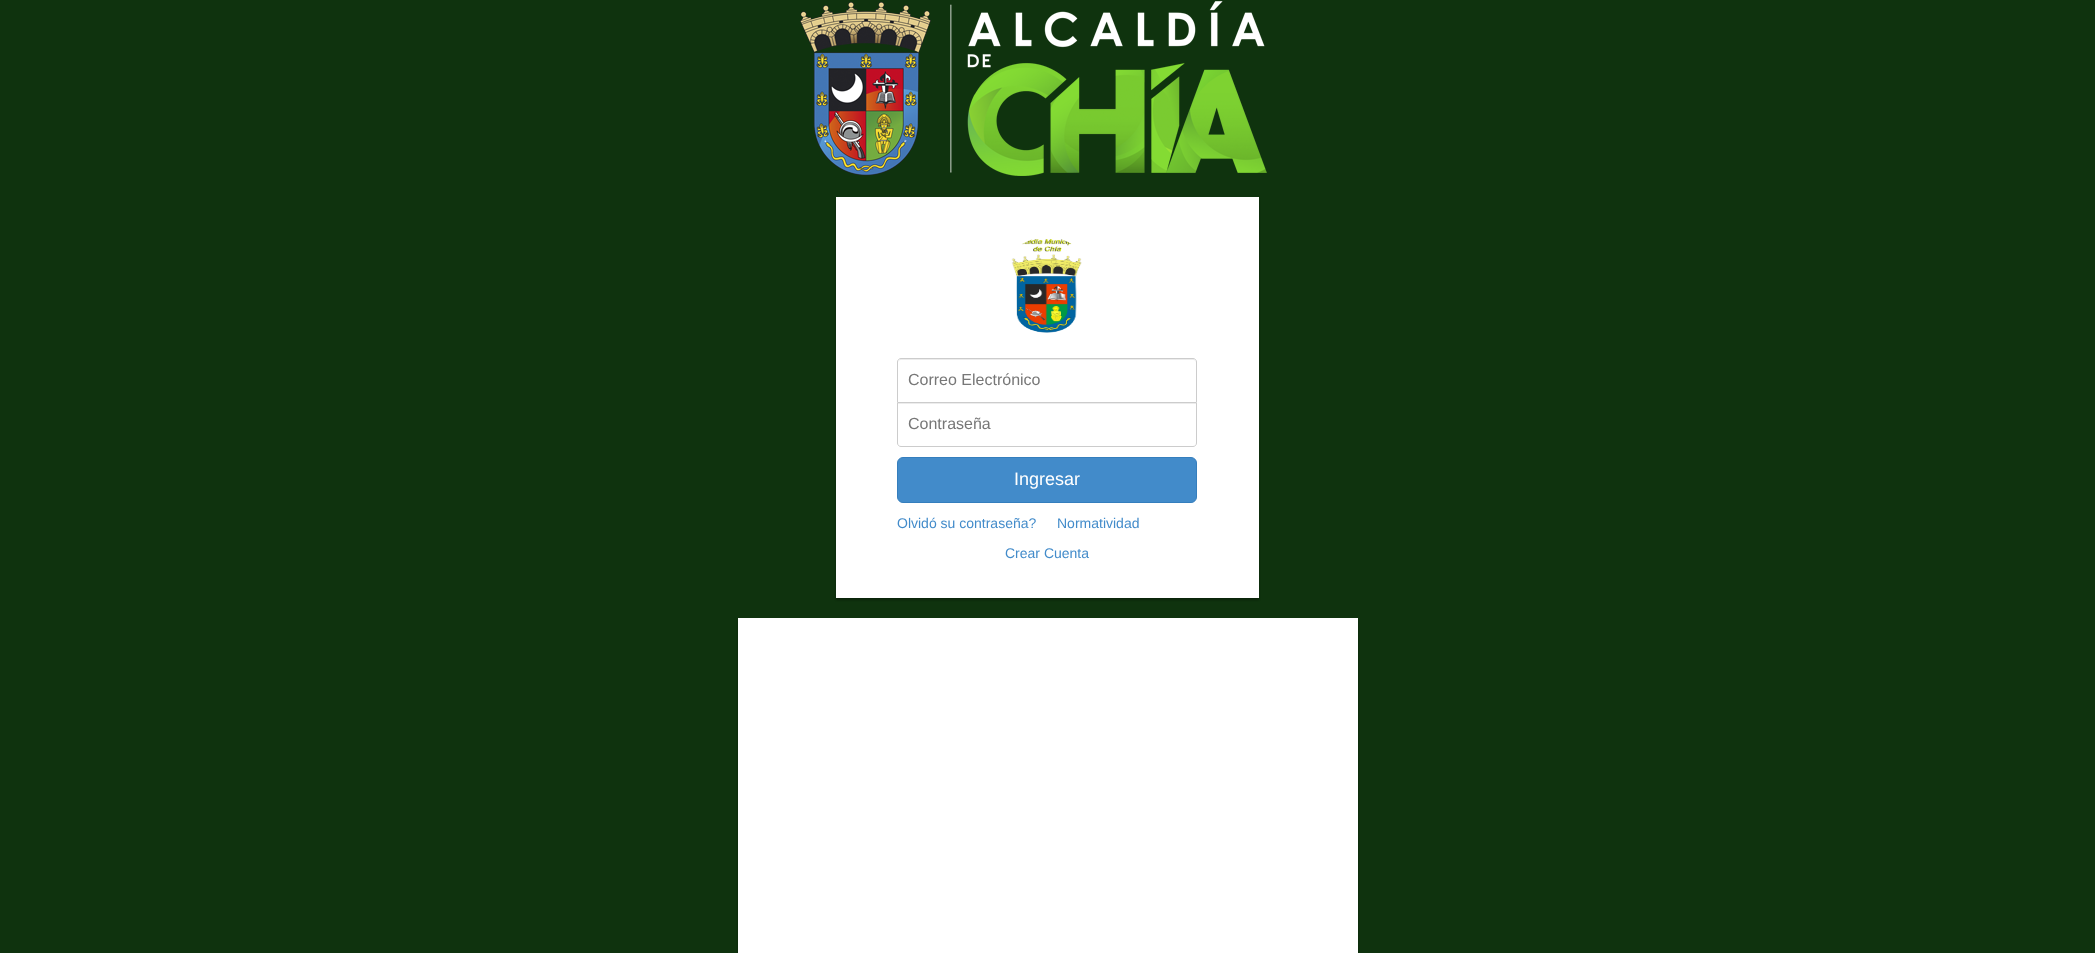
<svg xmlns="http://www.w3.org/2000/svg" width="2095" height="953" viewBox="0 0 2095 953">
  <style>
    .t1 { font: 16px Liberation Sans; fill: #777; }
    .t2 { font: 18px Liberation Sans; fill: #fff; }
    .t3 { font: 14px Liberation Sans; fill: #428bca; }
  </style>
  <rect width="100%" height="100%" fill="#0f330e"/>
  <image x="800" y="1" width="467" height="175" href="images/1.png"/>
  <rect x="836" y="199" width="423" height="401" fill="#0000004d" filter="blur(1px)"/>
  <rect x="836" y="197" width="423" height="401" fill="#fff"/>
  <image x="1011" y="239" width="71" height="94" href="images/2.png"/>
  <path d="M901 360H1193C1195 360 1196 361 1196 363L1195 360L1194 359H901C899 359 898 361 898 363C898 361 899 360 901 360Z" fill="#ececec"/>
  <path d="M901 358.5H1193C1195 358.5 1196.5 360 1196.5 362V402.5H897.5V362C897.5 360 899 358.5 901 358.5Z" fill="none" stroke="#ccc"/>
  <text x="908" y="385" class="t1">Correo Electrónico</text>
  <path d="M897 402H1197V443C1197 445 1195 447 1193 447H901C899 447 897 445 897 443Z" fill="#fff"/>
  <rect x="898" y="403" width="298" height="1" fill="#ececec"/>
  <path d="M897.5 402.5H1196.5V443C1196.5 445 1195 446.5 1193 446.5H901C899 446.5 897.5 445 897.5 443Z" fill="none" stroke="#ccc"/>
  <text x="908" y="429" class="t1">Contraseña</text>
  <rect x="897.5" y="457.5" width="299" height="45" rx="5.5" fill="#428bca" stroke="#357ebd"/>
  <text x="1014" y="485" class="t2">Ingresar</text>
  <text x="897" y="528" class="t3">Olvidó su contraseña?</text>
  <text x="1057" y="528" class="t3">Normatividad</text>
  <text x="1005" y="558" class="t3">Crear Cuenta</text>
  <rect x="738" y="620" width="620" height="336" fill="#0000004d" filter="blur(1px)"/>
  <rect x="738" y="618" width="620" height="335" fill="#fff"/>
</svg>
